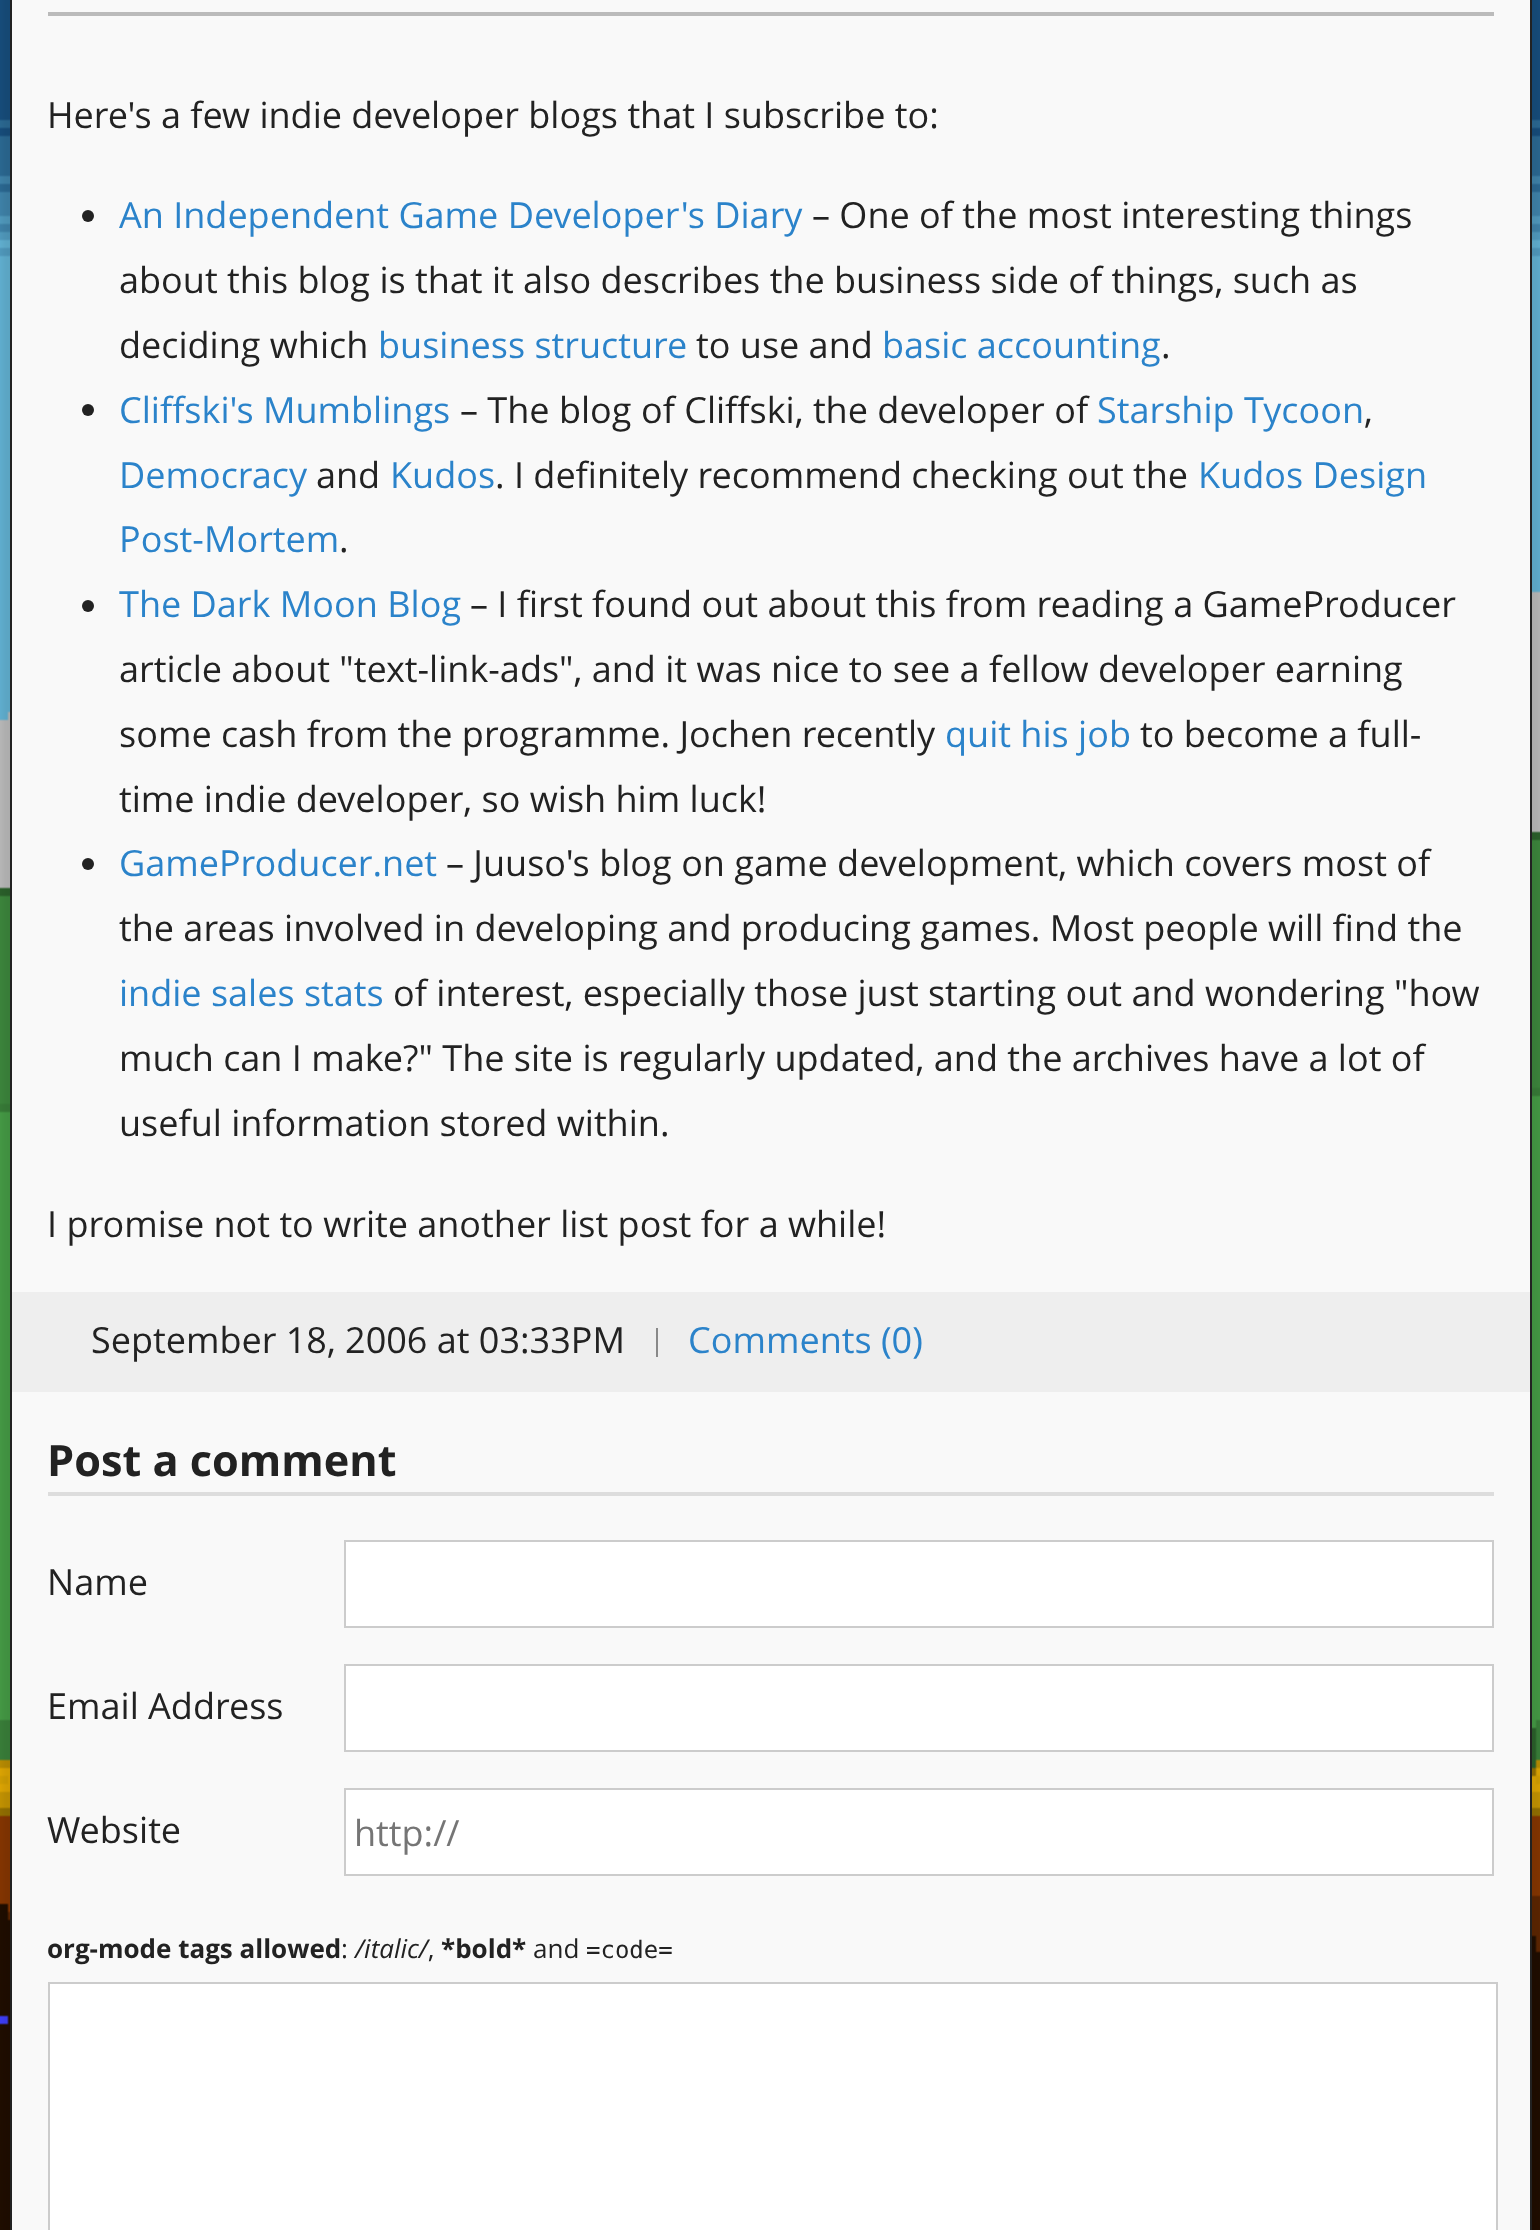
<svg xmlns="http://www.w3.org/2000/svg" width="1540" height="2230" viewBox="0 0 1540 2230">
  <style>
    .t1 { font: 36px Open Sans; fill: #222; }
    .t2 { font: 36px Open Sans; fill: #2b83ca; }
    .t3 { font: 29px Open Sans; fill: #888; }
    .t4 { font: bold 43.25px Open Sans; fill: #222; }
    .t5 { font: 36px Open Sans; fill: #757575; }
    .t6 { font: bold 26px Open Sans; fill: #222; }
    .t7 { font: 26px Open Sans; fill: #222; }
    .t8 { font: italic 26px Open Sans; fill: #222; }
    .t9 { font: 24px DejaVu Sans Mono; fill: #222; }
  </style>
  <rect width="100%" height="100%" fill="#fff"/>
  <image x="0" y="0" width="1540" height="2230" href="images/1.png"/>
  <rect x="0" y="-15" width="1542" height="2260" fill="#0000001a" filter="blur(5px)"/>
  <rect x="11" y="-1" width="1520" height="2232" fill="#f9f9f9" stroke="#222" stroke-width="2"/>
  <rect x="48" y="12" width="1446" height="4" fill="#bbb"/>
  <text x="47" y="128" class="t1">Here's a few indie developer blogs that I subscribe to:</text>
  <circle cx="88" cy="216" r="6" fill="#222"/>
  <text x="119" y="228" class="t2">An Independent Game Developer's Diary</text>
  <text x="812" y="228" class="t1">– One of the most interesting things</text>
  <text x="119" y="293" class="t1">about this blog is that it also describes the business side of things, such as</text>
  <text x="119" y="358" class="t1">deciding which</text>
  <text x="378" y="358" class="t2">business structure</text>
  <text x="696" y="358" class="t1">to use and</text>
  <text x="882" y="358" class="t2">basic accounting</text>
  <text x="1161" y="358" class="t1">.</text>
  <circle cx="88" cy="410" r="6" fill="#222"/>
  <text x="119" y="423" class="t2">Cliffski's Mumblings</text>
  <text x="460" y="423" class="t1">– The blog of Cliffski, the developer of</text>
  <text x="1097" y="423" class="t2">Starship Tycoon</text>
  <text x="1364" y="423" class="t1">,</text>
  <text x="119" y="488" class="t2">Democracy</text>
  <text x="316" y="488" class="t1">and</text>
  <text x="390" y="488" class="t2">Kudos</text>
  <text x="495" y="488" class="t1">. I definitely recommend checking out the</text>
  <text x="1198" y="488" class="t2">Kudos Design</text>
  <text x="119" y="552" class="t2">Post-Mortem</text>
  <text x="339" y="552" class="t1">.</text>
  <circle cx="88" cy="606" r="6" fill="#222"/>
  <text x="119" y="617" class="t2">The Dark Moon Blog</text>
  <text x="470" y="617" class="t1">– I first found out about this from reading a GameProducer</text>
  <text x="119" y="682" class="t1">article about "text-link-ads", and it was nice to see a fellow developer earning</text>
  <text x="119" y="747" class="t1">some cash from the programme. Jochen recently</text>
  <text x="945" y="747" class="t2">quit his job</text>
  <text x="1140" y="747" class="t1">to become a full-</text>
  <text x="119" y="812" class="t1">time indie developer, so wish him luck!</text>
  <circle cx="88" cy="864" r="6" fill="#222"/>
  <text x="119" y="876" class="t2">GameProducer.net</text>
  <text x="446" y="876" class="t1">– Juuso's blog on game development, which covers most of</text>
  <text x="119" y="941" class="t1">the areas involved in developing and producing games. Most people will find the</text>
  <text x="119" y="1006" class="t2">indie sales stats</text>
  <text x="393" y="1006" class="t1">of interest, especially those just starting out and wondering "how</text>
  <text x="119" y="1071" class="t1">much can I make?" The site is regularly updated, and the archives have a lot of</text>
  <text x="119" y="1136" class="t1">useful information stored within.</text>
  <text x="47" y="1237" class="t1">I promise not to write another list post for a while!</text>
  <rect x="12" y="1292" width="1518" height="100" fill="#eee"/>
  <text x="91" y="1353" class="t1">September 18, 2006 at 03:33PM</text>
  <text x="649" y="1350" class="t3">|</text>
  <text x="688" y="1353" class="t2">Comments (0)</text>
  <rect x="48" y="1492" width="1446" height="4" fill="#ddd"/>
  <text x="47" y="1476" class="t4">Post a comment</text>
  <text x="47" y="1595" class="t1">Name</text>
  <rect x="345" y="1541" width="1148" height="86" fill="#fff" stroke="#ccc" stroke-width="2"/>
  <text x="47" y="1719" class="t1">Email Address</text>
  <rect x="345" y="1665" width="1148" height="86" fill="#fff" stroke="#ccc" stroke-width="2"/>
  <text x="47" y="1843" class="t1">Website</text>
  <rect x="345" y="1789" width="1148" height="86" fill="#fff" stroke="#ccc" stroke-width="2"/>
  <text x="354" y="1846" class="t5">http://</text>
  <text x="47" y="1958" class="t6">org-mode tags allowed</text>
  <text x="341" y="1958" class="t7">:</text>
  <text x="355" y="1958" class="t8">/italic/</text>
  <text x="441" y="1958" class="t6">*bold*</text>
  <text x="533" y="1958" class="t7">and</text>
  <text x="586" y="1958" class="t9">=code=</text>
  <text x="428" y="1958" class="t7">,</text>
  <rect x="49" y="1983" width="1448" height="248" fill="#fff" stroke="#ccc" stroke-width="2"/>
</svg>
